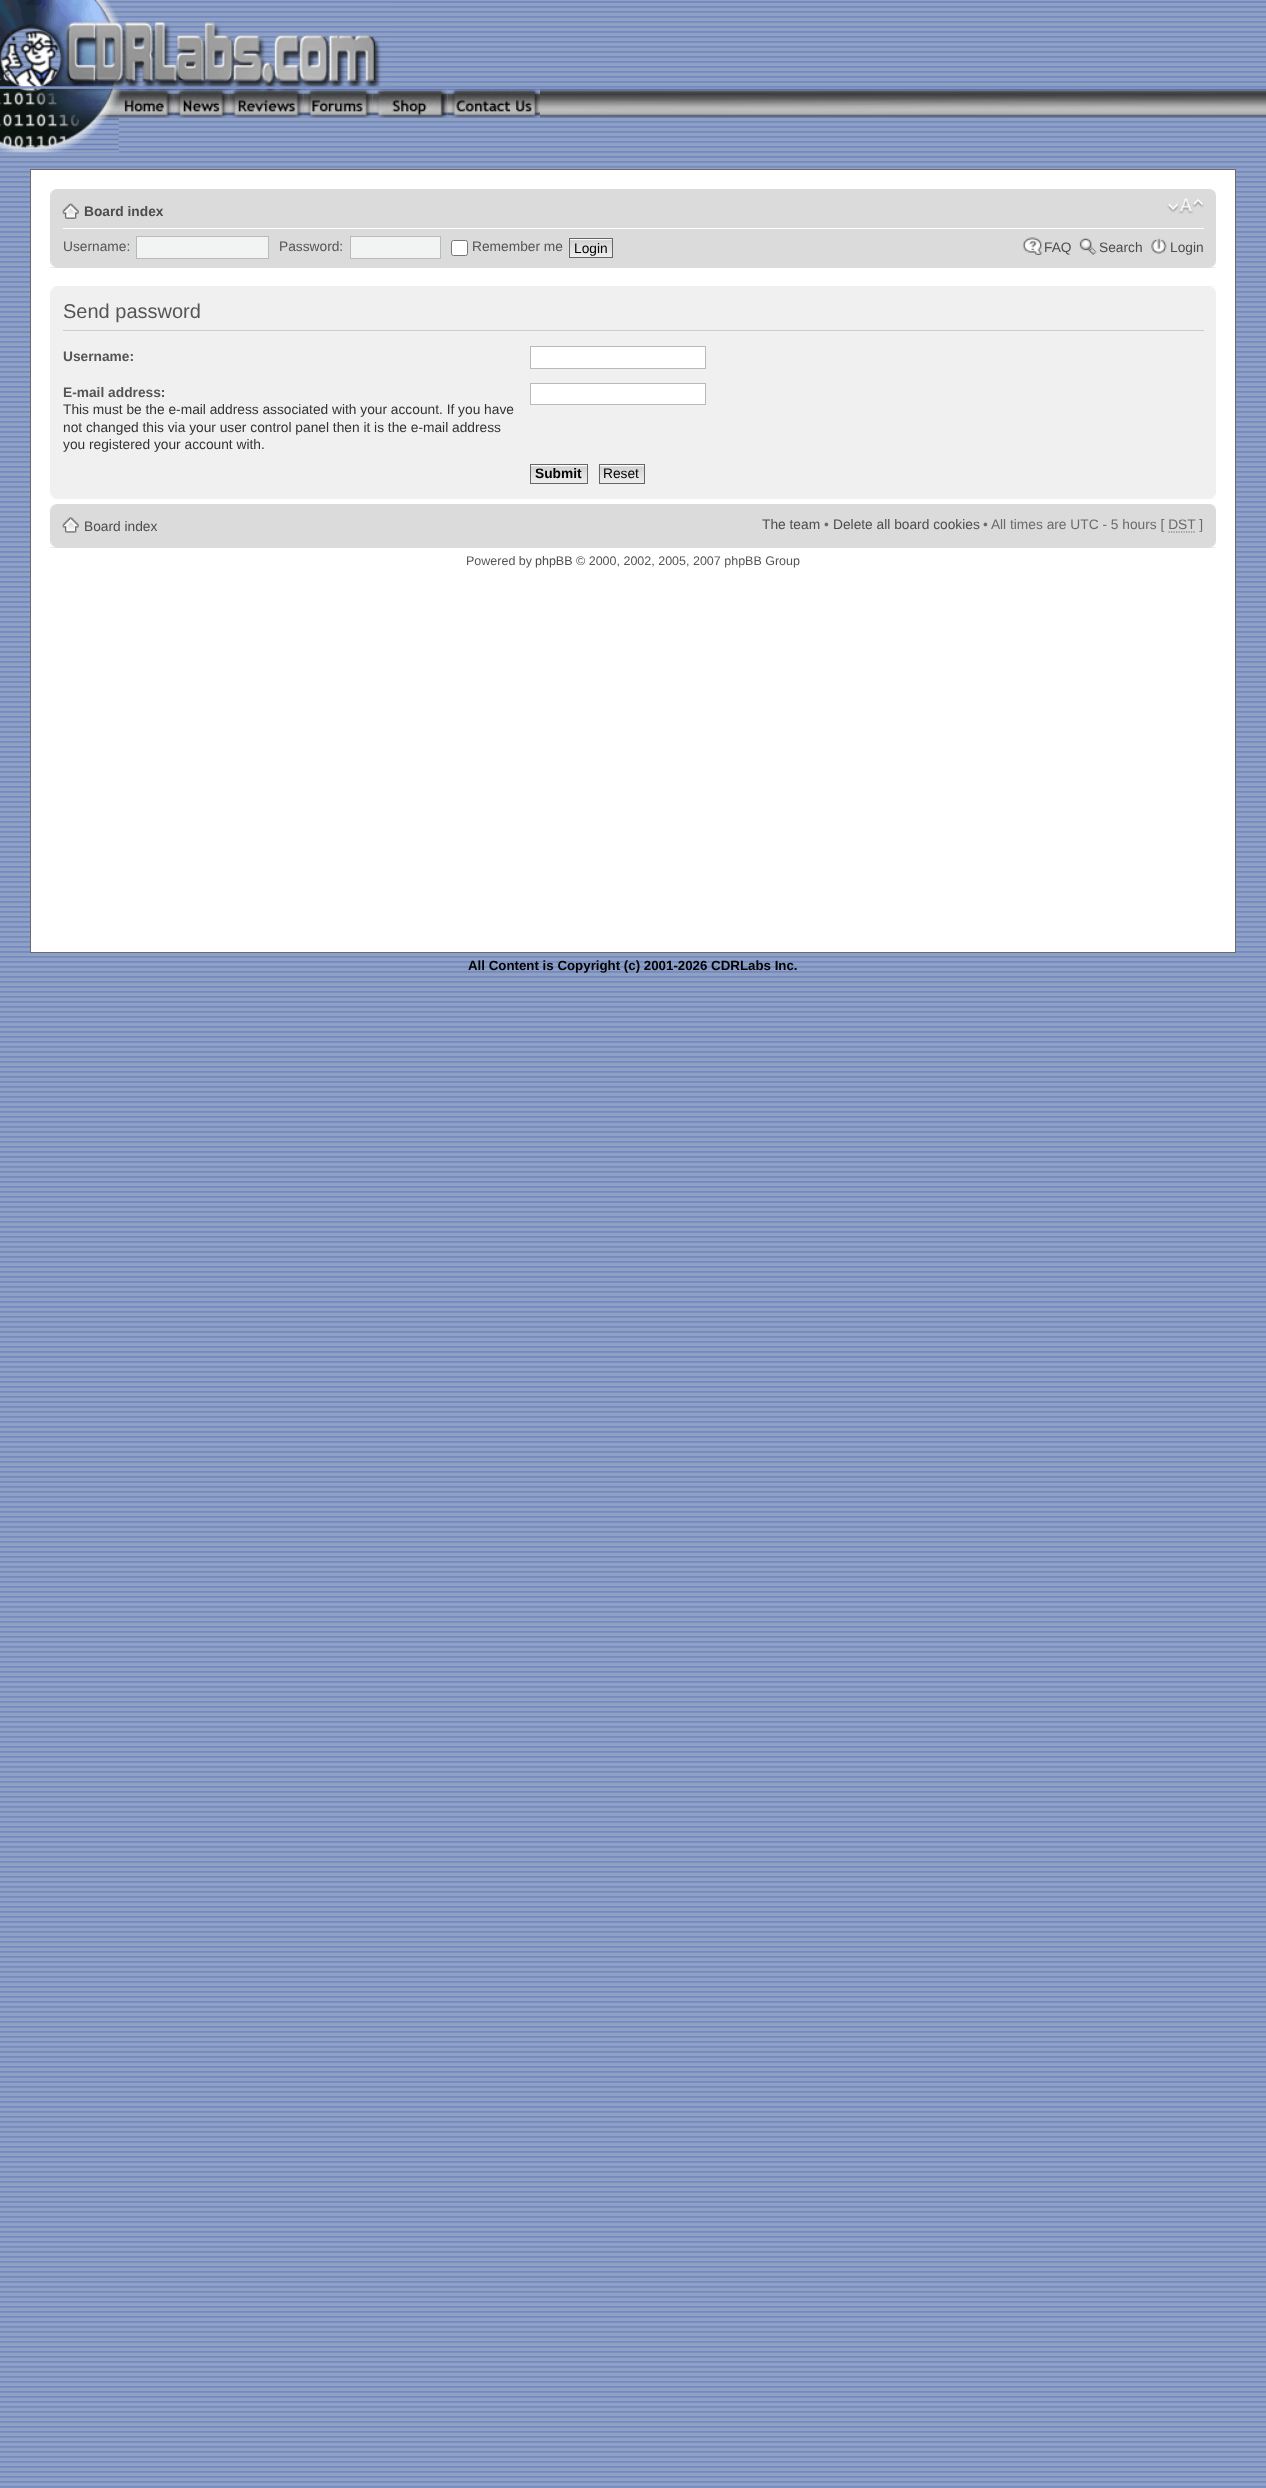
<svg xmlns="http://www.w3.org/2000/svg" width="1266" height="2488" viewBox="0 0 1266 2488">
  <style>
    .t1 { font: bold 13.75px Liberation Sans; fill: #4d4d4d; }
    .t2 { font: 13.75px Liberation Sans; fill: #555; }
    .t3 { font: 13.75px Liberation Sans; fill: #000; }
    .t4 { font: 13.75px Liberation Sans; fill: #4d4d4d; }
    .t5 { font: 20px Liberation Sans; fill: #555; }
    .t6 { font: bold 13.75px Liberation Sans; fill: #555; }
    .t7 { font: 13.75px Liberation Sans; fill: #333; }
    .t8 { font: bold 13.75px Liberation Sans; fill: #000; }
    .t9 { font: 13.75px Liberation Sans; fill: #6b6b6b; }
    .t10 { font: 12.5px Liberation Sans; fill: #555; }
    .t11 { font: 12.5px Liberation Sans; fill: #4d4d4d; }
    .t12 { font: bold 13.3px Liberation Sans; fill: #000; }
  </style>
  <rect width="100%" height="100%" fill="#fff"/>
  <image x="0" y="0" width="1266" height="2488" href="images/1.png"/>
  <image x="0" y="0" width="394" height="87" href="images/2.png"/>
  <image x="0" y="88" width="119" height="65" href="images/3.png"/>
  <image x="118" y="88" width="56" height="30" href="images/4.png"/>
  <image x="173" y="88" width="56" height="30" href="images/5.png"/>
  <image x="228" y="88" width="76" height="30" href="images/6.png"/>
  <image x="303" y="88" width="70" height="30" href="images/7.png"/>
  <image x="372" y="88" width="76" height="30" href="images/8.png"/>
  <image x="447" y="88" width="93" height="30" href="images/9.png"/>
  <image x="540" y="88" width="726" height="30" href="images/10.png"/>
  <rect x="30.5" y="169.5" width="1205" height="783" fill="#fff" stroke="#6b6b6b"/>
  <rect x="50" y="189" width="1166" height="79" fill="#dbdbdb"/>
  <image x="50" y="189" width="6" height="6" href="images/11.png"/>
  <image x="1210" y="189" width="6" height="6" href="images/12.png"/>
  <rect x="63" y="228" width="1141" height="1" fill="#fff"/>
  <image x="62" y="203" width="17" height="16" href="images/13.png"/>
  <text x="84" y="216" class="t1">Board index</text>
  <image x="1167" y="198" width="37" height="16" href="images/14.png"/>
  <text x="63" y="251" class="t2">Username:</text>
  <rect x="136.5" y="236.5" width="132" height="22" fill="#f2f3f3" stroke="#bababa"/>
  <text x="279" y="251" class="t2">Password:</text>
  <rect x="350.5" y="236.5" width="90" height="22" fill="#f2f3f3" stroke="#bababa"/>
  <rect x="451.5" y="240.5" width="16" height="15" rx="2" fill="#fff" stroke="#767676"/>
  <text x="472" y="251" class="t2">Remember me</text>
  <image x="568" y="239" width="44" height="19" href="images/15.png"/>
  <rect x="569.5" y="238.5" width="43" height="19" fill="none" stroke="#666"/>
  <text x="574" y="253" class="t3">Login</text>
  <image x="1022" y="237" width="21" height="18" href="images/16.png"/>
  <text x="1044" y="252" class="t4">FAQ</text>
  <image x="1079" y="238" width="18" height="17" href="images/17.png"/>
  <text x="1099" y="252" class="t4">Search</text>
  <image x="1151" y="238" width="16" height="16" href="images/18.png"/>
  <text x="1170" y="252" class="t4">Login</text>
  <image x="50" y="261" width="6" height="7" href="images/19.png"/>
  <image x="1210" y="261" width="6" height="7" href="images/20.png"/>
  <rect x="50" y="286" width="1166" height="213" fill="#f0f0f0"/>
  <image x="50" y="286" width="5" height="6" href="images/21.png"/>
  <image x="1211" y="286" width="5" height="6" href="images/22.png"/>
  <rect x="63" y="330" width="1141" height="1" fill="#ccc"/>
  <text x="63" y="318" class="t5">Send password</text>
  <text x="63" y="361" class="t6">Username:</text>
  <rect x="530.5" y="346.5" width="175" height="22" fill="#fff" stroke="#bababa"/>
  <text x="63" y="397" class="t6">E-mail address:</text>
  <text x="63" y="414" class="t7">This must be the e-mail address associated with your account. If you have</text>
  <text x="63" y="432" class="t7">not changed this via your user control panel then it is the e-mail address</text>
  <text x="63" y="449" class="t7">you registered your account with.</text>
  <rect x="530.5" y="383.5" width="175" height="21" fill="#fff" stroke="#bababa"/>
  <image x="531" y="465" width="56" height="18" href="images/23.png"/>
  <rect x="530.5" y="464.5" width="57" height="19" fill="none" stroke="#666"/>
  <text x="535" y="478" class="t8">Submit</text>
  <image x="598" y="465" width="46" height="19" href="images/24.png"/>
  <rect x="599.5" y="464.5" width="45" height="19" fill="none" stroke="#666"/>
  <text x="603" y="478" class="t3">Reset</text>
  <image x="50" y="493" width="5" height="6" href="images/25.png"/>
  <image x="1211" y="494" width="5" height="5" href="images/26.png"/>
  <rect x="50" y="504" width="1166" height="44" fill="#dbdbdb"/>
  <image x="50" y="504" width="6" height="6" href="images/11.png"/>
  <image x="1210" y="504" width="6" height="6" href="images/12.png"/>
  <image x="62" y="517" width="17" height="16" href="images/27.png"/>
  <text x="84" y="531" class="t4">Board index</text>
  <text x="762" y="529" class="t4">The team</text>
  <text x="824" y="529" class="t9">•</text>
  <text x="833" y="529" class="t4">Delete all board cookies</text>
  <text x="983" y="529" class="t9">• All times are UTC - 5 hours [ DST ]</text>
  <path d="M1168.5 532H1195.5" fill="none" stroke="#6b6b6b" stroke-width="1.2" stroke-dasharray="1.25 1.25"/>
  <image x="50" y="541" width="6" height="7" href="images/19.png"/>
  <image x="1210" y="541" width="6" height="7" href="images/20.png"/>
  <text x="466" y="565" class="t10">Powered by</text>
  <text x="535" y="565" class="t11">phpBB</text>
  <text x="576" y="565" class="t10">© 2000, 2002, 2005, 2007 phpBB Group</text>
  <text x="468" y="970" class="t12">All Content is Copyright (c) 2001-2026 CDRLabs Inc.</text>
</svg>
